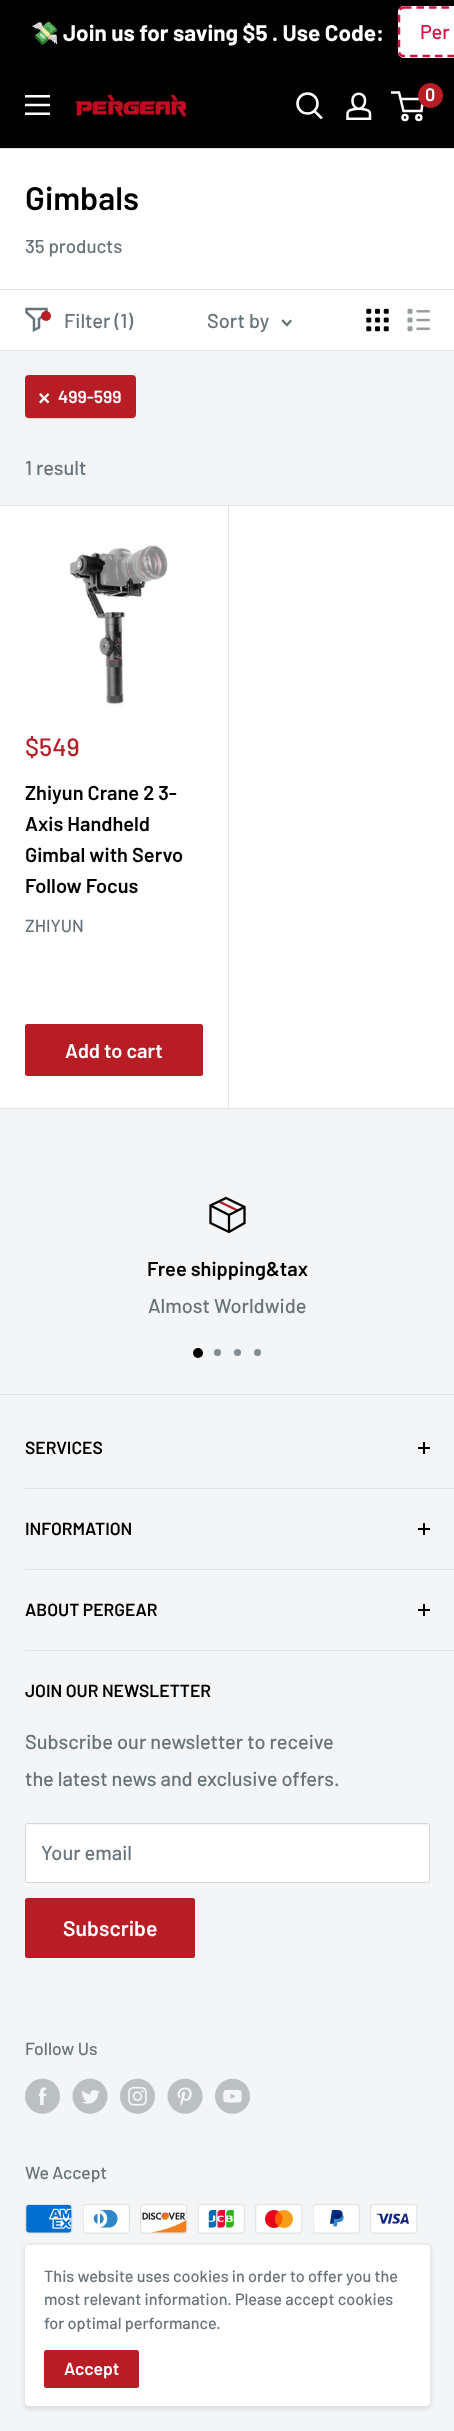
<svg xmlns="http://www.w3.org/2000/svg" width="454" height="2431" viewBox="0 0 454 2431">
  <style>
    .t1 { font: bold 22.5px Noto Color Emoji; fill: #fff; }
    .t2 { font: bold 22.5px Barlow; fill: #fff; }
    .t3 { font: 500 20px Barlow; fill: #d71444; }
    .t4 { font: 600 18px Barlow; fill: #fff; }
    .t5 { font: 600 32.5px Barlow; fill: #000; }
    .t6 { font: 500 18.75px Barlow; fill: #677279; }
    .t7 { font: 500 20px Barlow; fill: #677279; }
    .t8 { font: 600 17.5px Barlow; fill: #fff; }
    .t9 { font: 500 25px Barlow; fill: #b81c25; }
    .t10 { font: 600 20px Barlow; fill: #000; }
    .t11 { font: 500 17.5px Barlow; fill: #677279; }
    .t12 { font: 600 20px Barlow; fill: #fff; }
    .t13 { font: 600 17.5px Barlow; fill: #000; }
    .t14 { font: 600 21.25px Barlow; fill: #fff; }
    .t15 { font: 500 16.25px Barlow; fill: #677279; }
  </style>
  <defs>
    <clipPath id="clip1"><rect x="31" y="16" width="354" height="32"/></clipPath>
  </defs>
  <rect width="100%" height="100%" fill="#f3f5f6"/>
  <rect x="0" y="0" width="454" height="148" fill="#000"/>
  <g clip-path="url(#clip1)">
    <text x="31" y="41" class="t1">💸</text>
  </g>
  <text x="63" y="41" class="t2">Join us for saving $5 . Use Code:</text>
  <path d="M404 6H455V58H404C400.5 58 398 55.5 398 52V12C398 8.5 400.5 6 404 6Z" fill="#fff"/>
  <path d="M404 7.5H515C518 7.5 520 9.5 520 12.5V51C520 54 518 56 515 56H404C401 56 399 54 399 51V12.5C399 9.5 401 7.5 404 7.5Z" fill="none" stroke="#d71444" stroke-width="2.5" stroke-dasharray="7.5 5"/>
  <text x="420" y="39" class="t3">Per</text>
  <image x="25" y="95" width="25" height="20" href="images/1.png"/>
  <image x="75" y="95" width="112" height="22" href="images/2.png"/>
  <path d="M321 117.5L314.5 111" fill="none" stroke="#fff" stroke-width="2.6" stroke-linecap="square"/>
  <circle cx="307.5" cy="103.5" r="10" fill="none" stroke="#fff" stroke-width="2.6"/>
  <image x="346" y="92" width="26" height="28" href="images/3.png"/>
  <circle cx="405" cy="117.5" r="2.5" fill="none" stroke="#fff" stroke-width="2.5"/>
  <circle cx="418.8" cy="117.5" r="2.5" fill="none" stroke="#fff" stroke-width="2.5"/>
  <path d="M400.5 99H423L421.5 111H403.5L399 92.5H391" fill="none" stroke="#fff" stroke-width="2.5"/>
  <circle cx="430.5" cy="95.5" r="12.5" fill="#b81c25"/>
  <text x="425" y="101" class="t4">0</text>
  <rect x="0" y="149" width="454" height="959" fill="#fff"/>
  <rect x="0" y="148" width="454" height="1" fill="#e1e3e4"/>
  <rect x="0" y="1108" width="454" height="1" fill="#e1e3e4"/>
  <text x="25" y="210" class="t5">Gimbals</text>
  <text x="25" y="253" class="t6">35 products</text>
  <rect x="0" y="289" width="454" height="1" fill="#e1e3e4"/>
  <rect x="0" y="350" width="454" height="1" fill="#e1e3e4"/>
  <path d="M46.5 312.5L39 319V327.5L34 330V319L26.5 312.5V309H46.5Z" fill="none" stroke="#677279" stroke-width="2.5" stroke-linecap="square"/>
  <circle cx="46" cy="316" r="5" fill="#b81c25"/>
  <text x="64" y="328" class="t7">Filter (1)</text>
  <text x="207" y="328" class="t7">Sort by</text>
  <path d="M290.5 321L287 325L283 321" fill="none" stroke="#677279" stroke-width="2.3" stroke-linecap="square"/>
  <image x="366" y="308" width="23" height="24" href="images/4.png"/>
  <image x="407" y="308" width="23" height="24" href="images/5.png"/>
  <rect x="0" y="351" width="454" height="154" fill="#f3f5f6"/>
  <rect x="0" y="505" width="454" height="1" fill="#e1e3e4"/>
  <path d="M25 414V415C25 417 27 419 29 419H132C134 419 136 417 136 415C135 417 134 418 132 418H29C27 418 25 416 25 414Z" fill="#ead4d7"/>
  <rect x="25" y="375" width="111" height="43" rx="4" fill="#b81c25"/>
  <image x="39" y="393" width="11" height="11" href="images/6.png"/>
  <text x="58" y="403" class="t8">499-599</text>
  <text x="25" y="475" class="t7">1 result</text>
  <image x="69" y="545" width="99" height="161" href="images/7.png"/>
  <path d="M1 506H228V1108H1H229V506Z" fill="#e1e3e4"/>
  <text x="25" y="756" class="t9">$549</text>
  <text x="25" y="800" class="t10">Zhiyun Crane 2 3-</text>
  <text x="25" y="831" class="t10">Axis Handheld</text>
  <text x="25" y="862" class="t10">Gimbal with Servo</text>
  <text x="25" y="893" class="t10">Follow Focus</text>
  <text x="25" y="932" class="t11">ZHIYUN</text>
  <rect x="25" y="1024" width="178" height="52" rx="2.5" fill="#b81c25"/>
  <text x="65" y="1058" class="t12">Add to cart</text>
  <path d="M219 1201.5L237.5 1210.5" fill="none" stroke="#b81c25" stroke-width="2.3"/>
  <path d="M244.5 1207L229 1215L210.5 1205.5M229 1215V1232" fill="none" stroke="#000" stroke-width="2.3"/>
  <path d="M244.5 1207V1223L229 1232L210.5 1223V1205.5L226 1198Z" fill="none" stroke="#000" stroke-width="2.3" stroke-linecap="square"/>
  <text x="147" y="1276" class="t10">Free shipping&amp;tax</text>
  <text x="148" y="1313" class="t7">Almost Worldwide</text>
  <circle cx="198" cy="1353" r="5" fill="#000"/>
  <circle cx="217.5" cy="1352.5" r="3.5" fill="#838c92"/>
  <circle cx="237.5" cy="1352.5" r="3.5" fill="#838c92"/>
  <circle cx="257.5" cy="1352.5" r="3.5" fill="#838c92"/>
  <rect x="0" y="1394" width="454" height="1" fill="#e1e3e4"/>
  <rect x="25" y="1488" width="429" height="1" fill="#e1e3e4"/>
  <text x="25" y="1454" class="t13">SERVICES</text>
  <rect x="423" y="1442" width="2" height="12" fill="#000"/>
  <rect x="418" y="1447" width="12" height="2" fill="#000"/>
  <rect x="25" y="1569" width="429" height="1" fill="#e1e3e4"/>
  <text x="25" y="1535" class="t13">INFORMATION</text>
  <rect x="423" y="1523" width="2" height="12" fill="#000"/>
  <rect x="418" y="1528" width="12" height="2" fill="#000"/>
  <rect x="25" y="1650" width="429" height="1" fill="#e1e3e4"/>
  <text x="25" y="1616" class="t13">ABOUT PERGEAR</text>
  <rect x="423" y="1604" width="2" height="12" fill="#000"/>
  <rect x="418" y="1609" width="12" height="2" fill="#000"/>
  <text x="25" y="1697" class="t13">JOIN OUR NEWSLETTER</text>
  <text x="25" y="1749" class="t7">Subscribe our newsletter to receive</text>
  <text x="25" y="1786" class="t7">the latest news and exclusive offers.</text>
  <rect x="25" y="1823" width="405" height="60" rx="2.5" fill="#fff"/>
  <path d="M28 1825H428L429 1826V1825L428 1824H26V1826Z" fill="#f4f5f5"/>
  <rect x="25.5" y="1823.5" width="404" height="59" rx="2" fill="none" stroke="#d4d6d8"/>
  <text x="41" y="1860" class="t7">Your email</text>
  <rect x="25" y="1898" width="170" height="60" rx="2.5" fill="#b81c25"/>
  <text x="63" y="1936" class="t14">Subscribe</text>
  <text x="25" y="2055" class="t11">Follow Us</text>
  <image x="25" y="2078" width="35" height="36" href="images/8.png"/>
  <image x="72" y="2078" width="36" height="36" href="images/9.png"/>
  <image x="120" y="2078" width="35" height="36" href="images/10.png"/>
  <image x="167" y="2078" width="36" height="36" href="images/11.png"/>
  <image x="215" y="2078" width="35" height="36" href="images/12.png"/>
  <text x="25" y="2179" class="t11">We Accept</text>
  <image x="25" y="2204" width="48" height="30" href="images/13.png"/>
  <image x="83" y="2204" width="47" height="30" href="images/14.png"/>
  <image x="140" y="2204" width="48" height="30" href="images/15.png"/>
  <image x="198" y="2204" width="47" height="30" href="images/16.png"/>
  <image x="255" y="2204" width="48" height="30" href="images/17.png"/>
  <image x="313" y="2204" width="47" height="30" href="images/18.png"/>
  <image x="370" y="2204" width="48" height="30" href="images/19.png"/>
  <rect x="24" y="2245" width="407" height="164" rx="5" fill="#0000001a" filter="blur(2.5px)"/>
  <rect x="25" y="2245" width="405" height="161" rx="4" fill="#fff"/>
  <text x="44" y="2282" class="t15">This website uses cookies in order to offer you the</text>
  <text x="44" y="2305" class="t15">most relevant information. Please accept cookies</text>
  <text x="44" y="2329" class="t15">for optimal performance.</text>
  <rect x="44" y="2350" width="95" height="38" rx="2.5" fill="#b81c25"/>
  <text x="64" y="2375" class="t8">Accept</text>
</svg>
